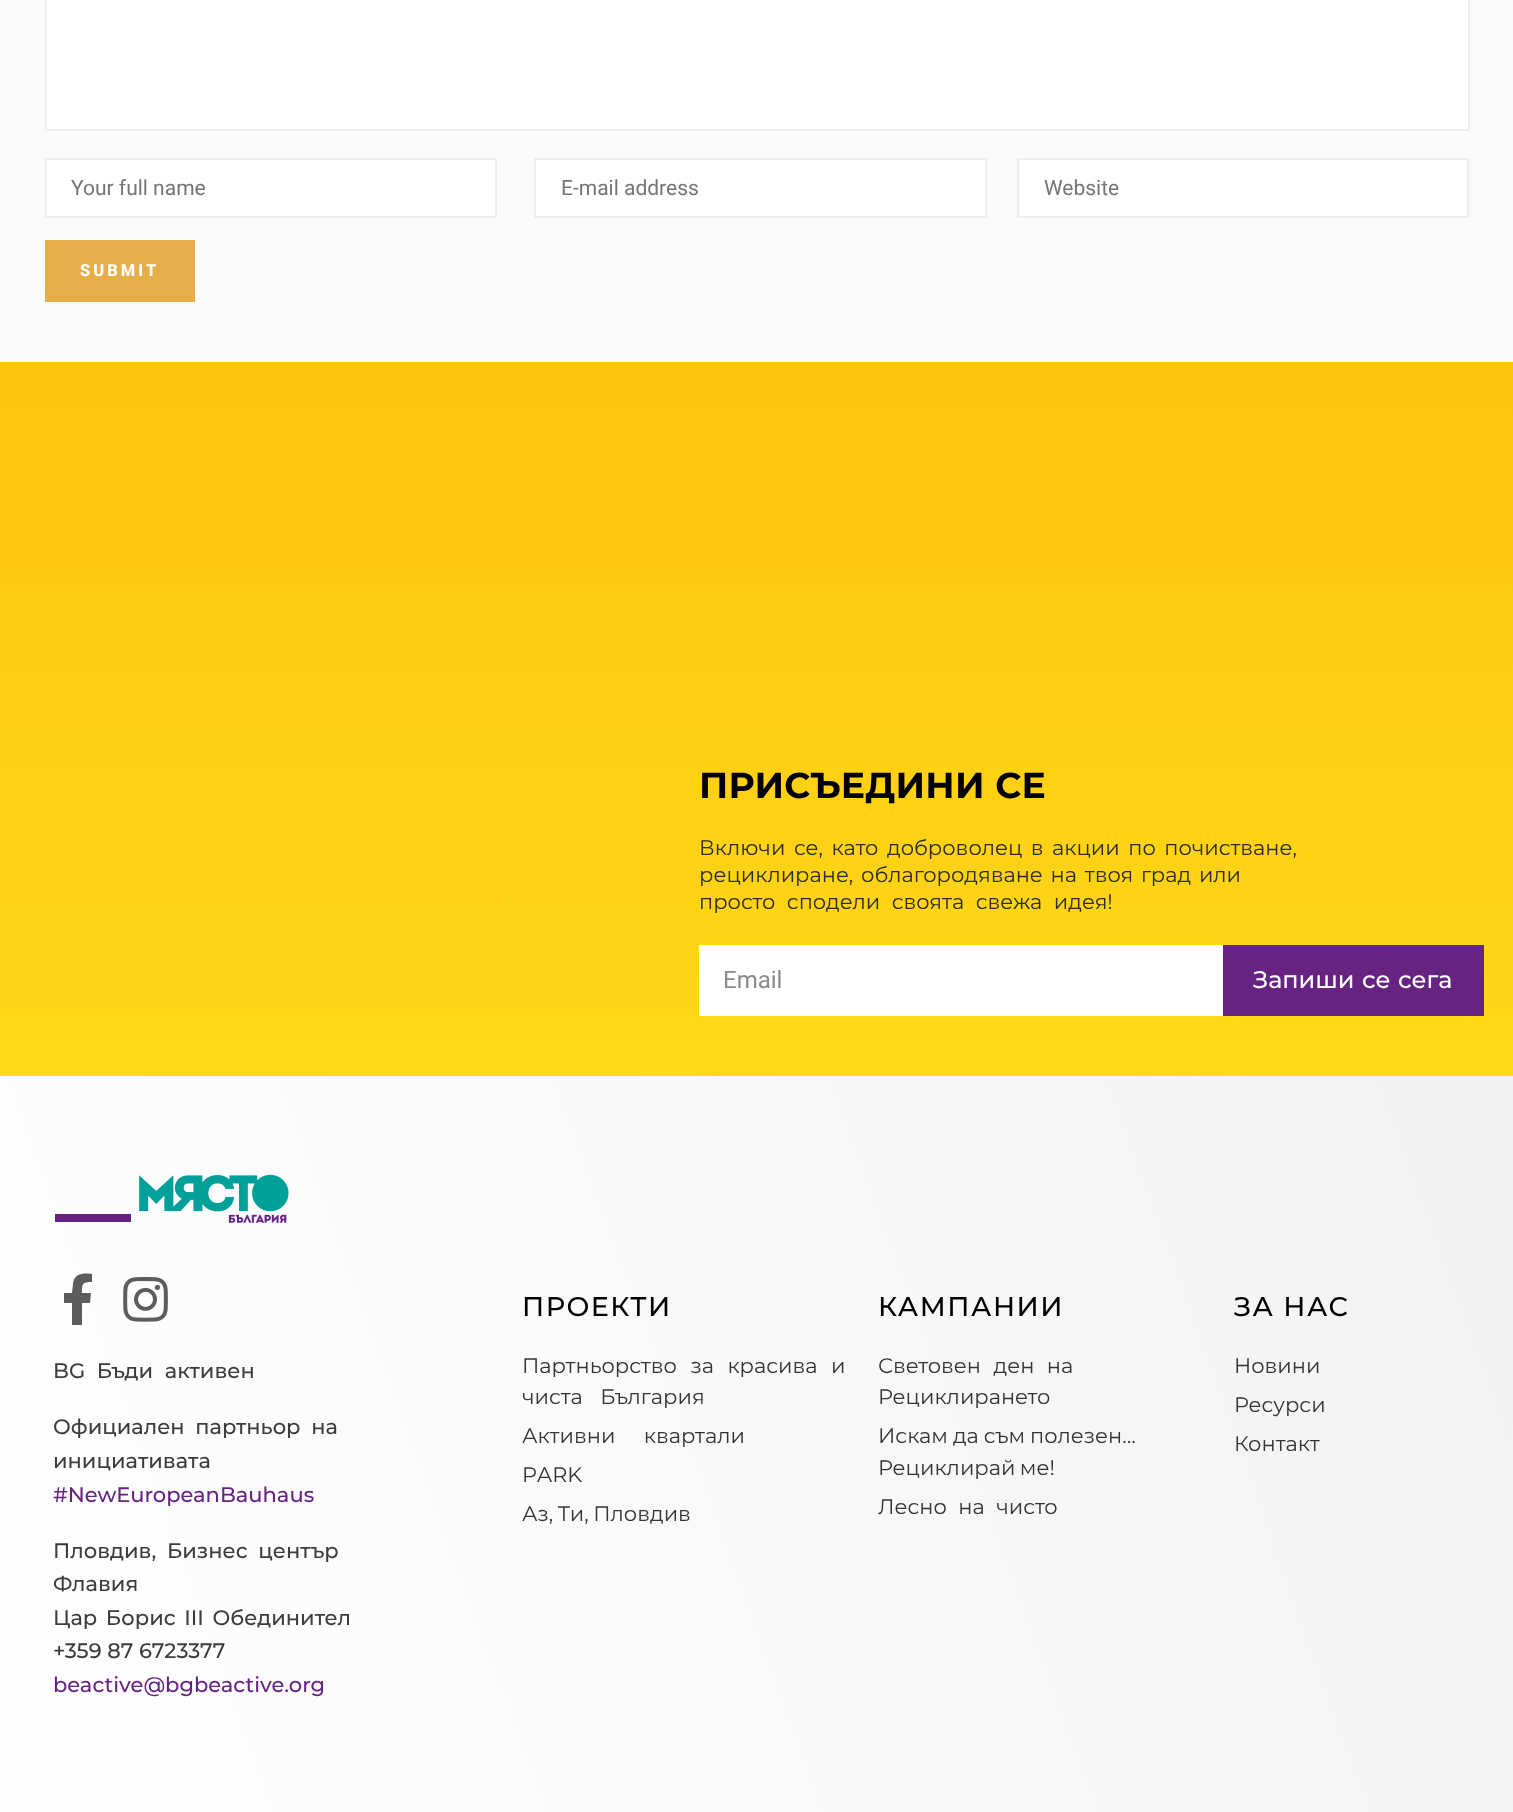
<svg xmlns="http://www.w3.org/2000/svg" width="1513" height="1812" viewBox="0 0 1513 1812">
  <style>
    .t1 { font: 21px Roboto; fill: #757575; }
    .t2 { font: 800 16.5px Roboto; letter-spacing: 3px; fill: #fff; }
    .t3 { font: bold 36px Montserrat; letter-spacing: 0.25px; fill: #000; }
    .t4 { font: 21px Montserrat; fill: #2b2b2b; }
    .t5 { font: 24px Roboto; fill: #8a8a8a; }
    .t6 { font: 500 24px Montserrat; fill: #fff; }
    .t7 { font: 500 21px Montserrat; fill: #3c3c3c; }
    .t8 { font: 500 21px Montserrat; fill: #662382; }
    .t9 { font: 500 27px Montserrat; letter-spacing: 1.5px; fill: #000; }
    .t10 { font: 21px Montserrat; fill: #343434; }
  </style>
  <defs>
    <linearGradient id="g1" gradientUnits="userSpaceOnUse" x1="757" y1="361" x2="757" y2="1076"><stop offset="0" stop-color="#ffc40e"/><stop offset="1" stop-color="#ffd917"/></linearGradient>
    <linearGradient id="g2" gradientUnits="userSpaceOnUse" x1="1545" y1="1161" x2="-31" y2="1735"><stop offset="0" stop-color="#f2f2f2"/><stop offset="1" stop-color="#fff"/></linearGradient>
  </defs>
  <rect width="100%" height="100%" fill="#fafafa"/>
  <rect x="46" y="-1" width="1423" height="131" fill="#fff" stroke="#ededed" stroke-width="2"/>
  <rect x="46" y="159" width="450" height="58" fill="#fff" stroke="#ededed" stroke-width="2"/>
  <text x="71" y="195" class="t1">Your full name</text>
  <rect x="535" y="159" width="451" height="58" fill="#fff" stroke="#ededed" stroke-width="2"/>
  <text x="561" y="195" class="t1">E-mail address</text>
  <rect x="1018" y="159" width="450" height="58" fill="#fff" stroke="#ededed" stroke-width="2"/>
  <text x="1044" y="195" class="t1">Website</text>
  <rect x="45" y="240" width="150" height="62" fill="#e6ae48"/>
  <text x="80" y="276" class="t2">SUBMIT</text>
  <rect x="0" y="362" width="1513" height="714" fill="url(#g1)"/>
  <text x="699" y="798" class="t3">ПРИСЪЕДИНИ СЕ</text>
  <text x="699" y="855" word-spacing="3" class="t4">Включи се, като доброволец в акции по почистване,</text>
  <text x="699" y="882" word-spacing="2.25" class="t4">рециклиране, облагородяване на твоя град или</text>
  <text x="699" y="909" word-spacing="6" class="t4">просто сподели своята свежа идея!</text>
  <rect x="699" y="945" width="524" height="71" fill="#fff"/>
  <text x="723" y="988" class="t5">Email</text>
  <rect x="1223" y="945" width="261" height="71" fill="#662382"/>
  <text x="1253" y="988" word-spacing="1" class="t6">Запиши се сега</text>
  <rect x="0" y="1076" width="1513" height="736" fill="url(#g2)"/>
  <image x="55" y="1174" width="234" height="49" href="images/1.png"/>
  <path d="M90 1303H82V1325H72V1303H64V1293H72L73 1284C74 1273 84 1273 92 1274V1282C82 1282 82 1284 82 1293H91Z" fill="#5c5c5c"/>
  <image x="123" y="1276" width="45" height="46" href="images/2.png"/>
  <text x="53" y="1378" word-spacing="6" class="t7">BG Бъди активен</text>
  <text x="53" y="1434" word-spacing="5" class="t7">Официален партньор на</text>
  <text x="53" y="1468" class="t7">инициативата</text>
  <text x="53" y="1502" class="t8">#NewEuropeanBauhaus</text>
  <text x="53" y="1558" word-spacing="5" class="t7">Пловдив, Бизнес център</text>
  <text x="53" y="1591" class="t7">Флавия</text>
  <text x="53" y="1625" word-spacing="3" class="t7">Цар Борис III Обединител</text>
  <text x="53" y="1658" class="t7">+359 87 6723377</text>
  <text x="53" y="1692" class="t8">beactive@bgbeactive.org</text>
  <text x="522" y="1316" class="t9">ПРОЕКТИ</text>
  <text x="522" y="1373" word-spacing="8" class="t10">Партньорство за красива и</text>
  <text x="522" y="1404" word-spacing="12" class="t10">чиста България</text>
  <text x="522" y="1443" word-spacing="23" class="t10">Активни квартали</text>
  <text x="522" y="1482" class="t10">PARK</text>
  <text x="522" y="1521" word-spacing="-1" class="t10">Аз, Ти, Пловдив</text>
  <text x="878" y="1316" class="t9">КАМПАНИИ</text>
  <text x="878" y="1373" word-spacing="7" class="t10">Световен ден на</text>
  <text x="878" y="1404" class="t10">Рециклирането</text>
  <text x="878" y="1443" word-spacing="-0.5" class="t10">Искам да съм полезен…</text>
  <text x="878" y="1475" word-spacing="-1" class="t10">Рециклирай ме!</text>
  <text x="878" y="1514" word-spacing="6" class="t10">Лесно на чисто</text>
  <text x="1234" y="1316" class="t9">ЗА НАС</text>
  <text x="1234" y="1373" class="t10">Новини</text>
  <text x="1234" y="1412" class="t10">Ресурси</text>
  <text x="1234" y="1451" class="t10">Контакт</text>
</svg>
